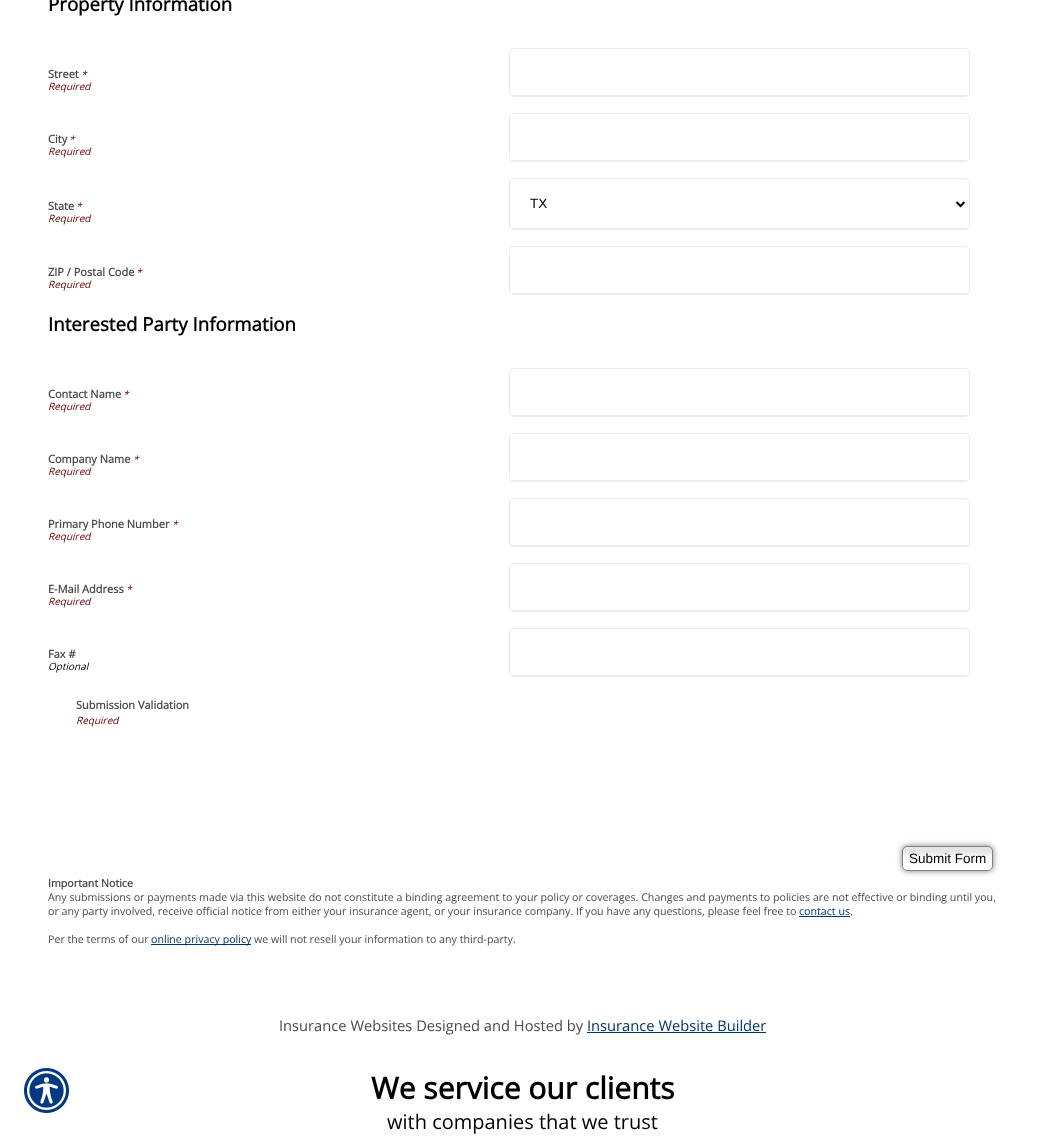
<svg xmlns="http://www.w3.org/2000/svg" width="1045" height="1141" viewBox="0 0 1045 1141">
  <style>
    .t1 { font: bold 18.7px Open Sans; fill: #000; }
    .t2 { font: bold 11px Open Sans; fill: #4b4b4b; }
    .t3 { font: italic 10px Open Sans; fill: #600; }
    .t4 { font: 13.5px Liberation Sans; fill: #000; }
    .t5 { font: italic 10px Open Sans; fill: #000; }
    .t6 { font: bold 10.67px Open Sans; fill: #4b4b4b; }
    .t7 { font: 10.67px Open Sans; fill: #4b4b4b; }
    .t8 { font: 10.67px Open Sans; fill: #00376a; }
    .t9 { font: 14.7px Open Sans; fill: #4b4b4b; }
    .t10 { font: 14.7px Open Sans; fill: #00376a; }
    .t11 { font: bold 30px Open Sans; fill: #000; }
    .t12 { font: 20px Open Sans; fill: #000; }
  </style>
  <rect width="100%" height="100%" fill="#fff"/>
  <image x="24" y="1068" width="45" height="45" href="images/1.png"/>
  <text x="48" y="11" class="t1">Property Information</text>
  <text x="48" y="78" class="t2">Street</text>
  <text x="48" y="90" class="t3">Required</text>
  <text x="81" y="78" class="t3">*</text>
  <rect x="509.5" y="48.5" width="460" height="48" rx="4.5" fill="none" stroke="#ebebeb"/>
  <rect x="512" y="95" width="456" height="1" fill="#ebebeb"/>
  <text x="48" y="143" class="t2">City</text>
  <text x="48" y="155" class="t3">Required</text>
  <text x="69" y="143" class="t3">*</text>
  <rect x="509.5" y="113.5" width="460" height="48" rx="4.5" fill="none" stroke="#ebebeb"/>
  <rect x="512" y="160" width="456" height="1" fill="#ebebeb"/>
  <text x="48" y="210" class="t2">State</text>
  <text x="48" y="222" class="t3">Required</text>
  <text x="76" y="210" class="t3">*</text>
  <rect x="509.5" y="178.5" width="460" height="51" rx="4.5" fill="none" stroke="#ebebeb"/>
  <rect x="512" y="228" width="456" height="1" fill="#ebebeb"/>
  <path d="M956.5 202L960.5 206L964.5 202" fill="none" stroke="#000" stroke-width="2"/>
  <text x="530" y="208" class="t4">TX</text>
  <text x="48" y="276" class="t2">ZIP / Postal Code</text>
  <text x="48" y="288" class="t3">Required</text>
  <text x="136" y="276" class="t3">*</text>
  <rect x="509.5" y="246.5" width="460" height="48" rx="4.5" fill="none" stroke="#ebebeb"/>
  <rect x="512" y="293" width="456" height="1" fill="#ebebeb"/>
  <text x="48" y="331" class="t1">Interested Party Information</text>
  <text x="48" y="398" class="t2">Contact Name</text>
  <text x="48" y="410" class="t3">Required</text>
  <text x="123" y="398" class="t3">*</text>
  <rect x="509.5" y="368.5" width="460" height="48" rx="4.5" fill="none" stroke="#ebebeb"/>
  <rect x="512" y="415" width="456" height="1" fill="#ebebeb"/>
  <text x="48" y="463" class="t2">Company Name</text>
  <text x="48" y="475" class="t3">Required</text>
  <text x="133" y="463" class="t3">*</text>
  <rect x="509.5" y="433.5" width="460" height="48" rx="4.5" fill="none" stroke="#ebebeb"/>
  <rect x="512" y="480" width="456" height="1" fill="#ebebeb"/>
  <text x="48" y="528" class="t2">Primary Phone Number</text>
  <text x="48" y="540" class="t3">Required</text>
  <text x="172" y="528" class="t3">*</text>
  <rect x="509.5" y="498.5" width="460" height="48" rx="4.5" fill="none" stroke="#ebebeb"/>
  <rect x="512" y="545" width="456" height="1" fill="#ebebeb"/>
  <text x="48" y="593" class="t2">E-Mail Address</text>
  <text x="48" y="605" class="t3">Required</text>
  <text x="126" y="593" class="t3">*</text>
  <rect x="509.5" y="563.5" width="460" height="48" rx="4.5" fill="none" stroke="#ebebeb"/>
  <rect x="512" y="610" width="456" height="1" fill="#ebebeb"/>
  <text x="48" y="658" class="t2">Fax #</text>
  <text x="48" y="670" class="t5">Optional</text>
  <rect x="509.5" y="628.5" width="460" height="48" rx="4.5" fill="none" stroke="#ebebeb"/>
  <rect x="512" y="675" width="456" height="1" fill="#ebebeb"/>
  <text x="76" y="709" class="t2">Submission Validation</text>
  <text x="76" y="724" class="t3">Required</text>
  <rect x="902" y="846" width="91" height="25" rx="5" fill="#808080" filter="blur(3px)"/>
  <image x="902" y="847" width="91" height="24" href="images/2.png"/>
  <rect x="902.5" y="846.5" width="90" height="24" rx="4.5" fill="none" stroke="#808080"/>
  <text x="909" y="863" class="t4">Submit Form</text>
  <text x="48" y="887" class="t6">Important Notice</text>
  <text x="48" y="901" class="t7">Any submissions or payments made via this website do not constitute a binding agreement to your policy or coverages. Changes and payments to policies are not effective or binding until you,</text>
  <text x="48" y="915" class="t7">or any party involved, receive official notice from either your insurance agent, or your insurance company. If you have any questions, please feel free to</text>
  <text x="799" y="915" class="t8">contact us</text>
  <rect x="799" y="916" width="51" height="1" fill="#00376a"/>
  <text x="850" y="915" class="t7">.</text>
  <text x="48" y="943" class="t7">Per the terms of our</text>
  <rect x="151" y="944" width="100" height="1" fill="#00376a"/>
  <text x="151" y="943" class="t8">online privacy policy</text>
  <text x="254" y="943" class="t7">we will not resell your information to any third-party.</text>
  <text x="279" y="1031" class="t9">Insurance Websites Designed and Hosted by</text>
  <text x="587" y="1031" class="t10">Insurance Website Builder</text>
  <rect x="587" y="1032" width="179" height="1" fill="#00376a"/>
  <text x="371" y="1099" class="t11">We service our clients</text>
  <text x="387" y="1129" class="t12">with companies that we trust</text>
</svg>
